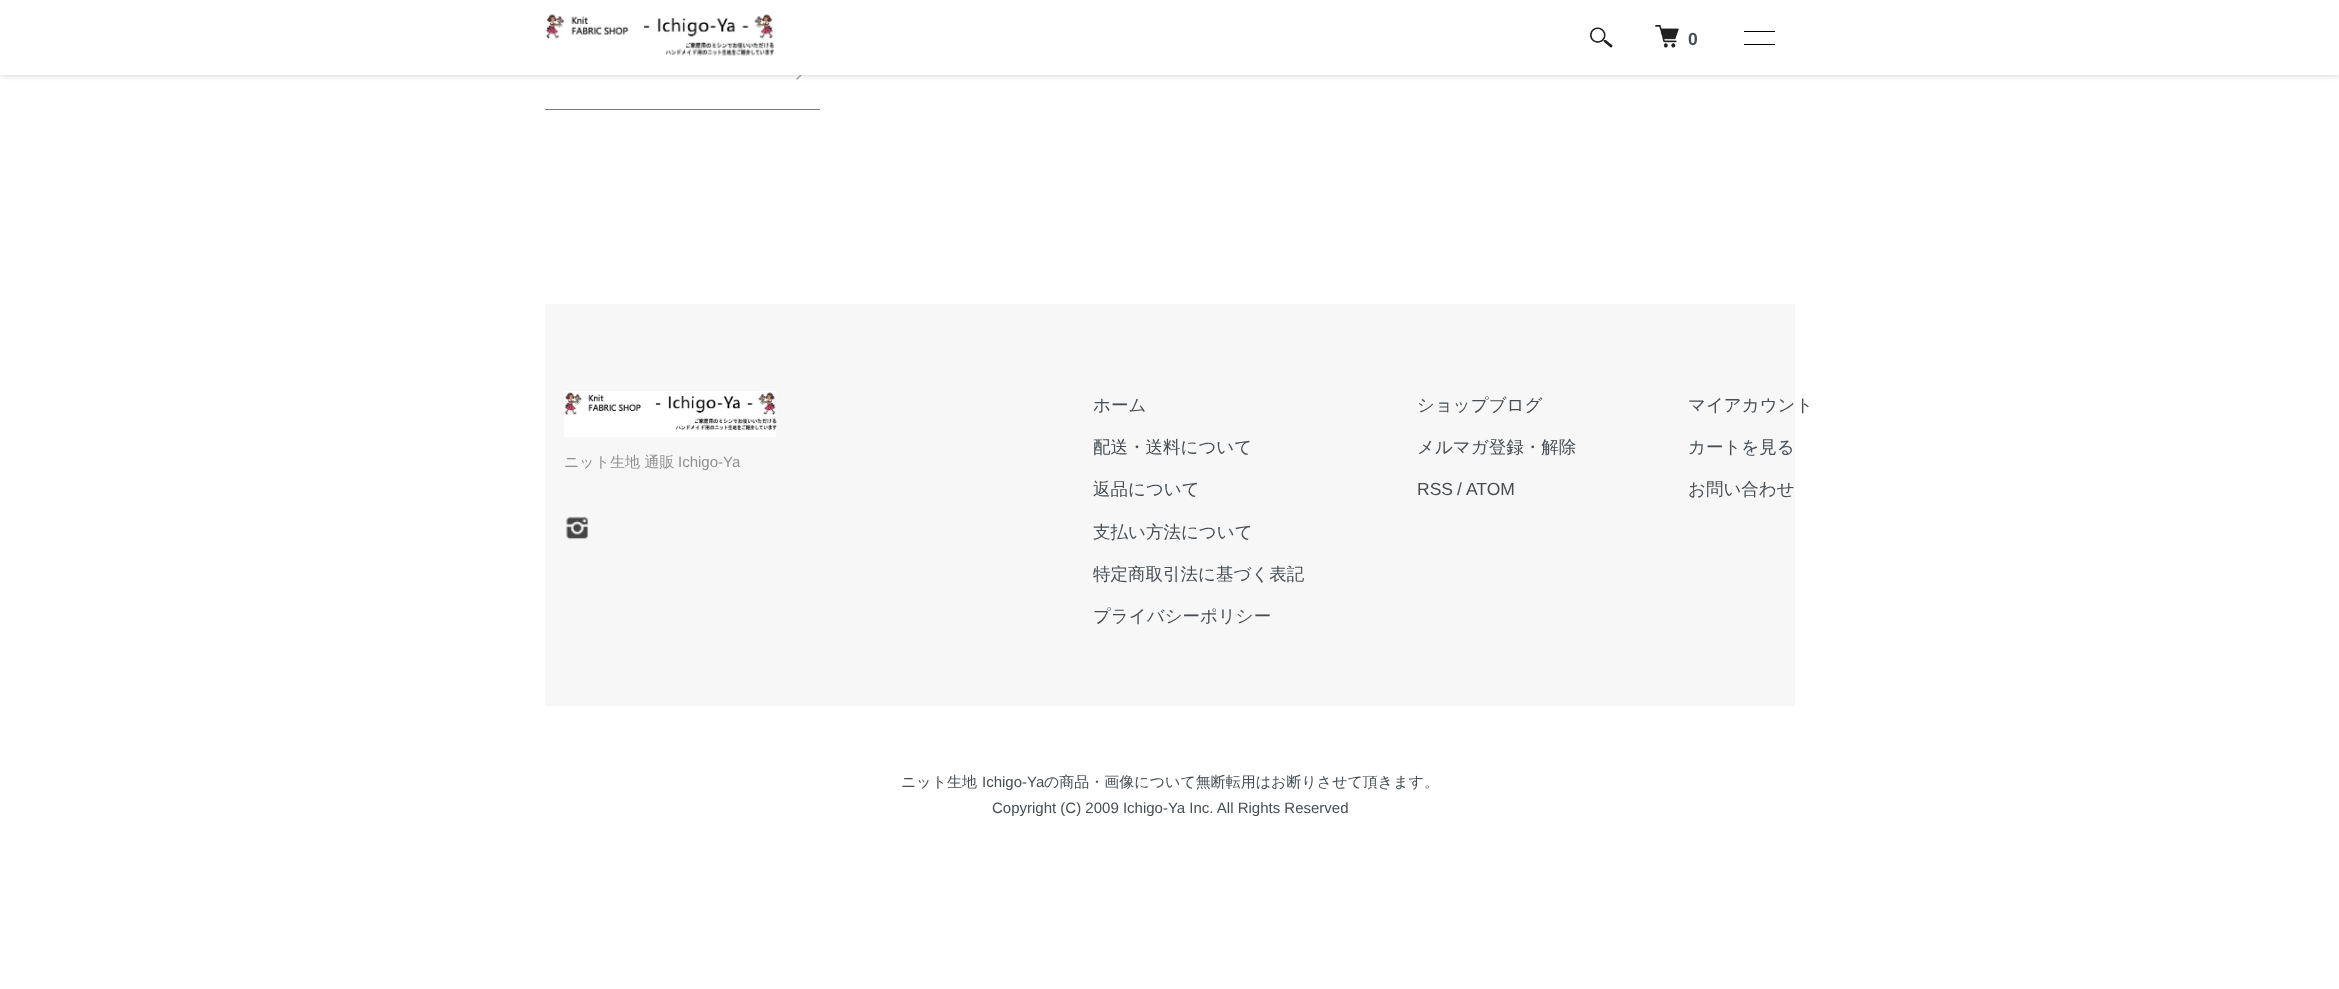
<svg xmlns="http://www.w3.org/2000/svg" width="2339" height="989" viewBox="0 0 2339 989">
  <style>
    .t1 { font: bold 17.5px Liberation Sans; fill: #464e54; }
    .t2 { font: 500 15px WenQuanYi Zen Hei; fill: #909090; }
    .t3 { font: 15px Liberation Sans; fill: #909090; }
    .t4 { font: 500 17.5px WenQuanYi Zen Hei; fill: #464e54; }
    .t5 { font: 17.5px Liberation Sans; fill: #464e54; }
    .t6 { font: 500 15px WenQuanYi Zen Hei; fill: #464e54; }
    .t7 { font: 15px Liberation Sans; fill: #464e54; }
  </style>
  <rect width="100%" height="100%" fill="#fff"/>
  <path d="M796 79L802 73L803 74L797 80Z" fill="#aaa"/>
  <rect x="0" y="0" width="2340" height="75" fill="#00000033" filter="blur(3px)"/>
  <rect x="0" y="0" width="2339" height="75" fill="#fff"/>
  <image x="545" y="14" width="229" height="42" href="images/1.png"/>
  <image x="1590" y="27" width="23" height="21" href="images/2.png"/>
  <image x="1655" y="25" width="24" height="23" href="images/3.png"/>
  <text x="1688" y="45" class="t1">0</text>
  <rect x="1744" y="31" width="31" height="1" fill="#000"/>
  <rect x="1744" y="44" width="31" height="1" fill="#000"/>
  <rect x="545" y="109" width="275" height="1" fill="#7d7d7d"/>
  <rect x="545" y="304" width="1250" height="402" fill="#f7f7f7"/>
  <image x="564" y="391" width="213" height="46" href="images/4.png"/>
  <text x="564" y="467" class="t2">ニット生地 通販</text>
  <text x="678" y="467" class="t3">Ichigo-Ya</text>
  <image x="566" y="516" width="23" height="24" href="images/5.png"/>
  <text x="1093" y="411" class="t4">ホーム</text>
  <text x="1093" y="453" class="t4">配送・送料について</text>
  <text x="1093" y="495" class="t4">返品について</text>
  <text x="1093" y="538" class="t4">支払い方法について</text>
  <text x="1093" y="580" class="t4">特定商取引法に基づく表記</text>
  <text x="1093" y="622" class="t4">プライバシーポリシー</text>
  <text x="1417" y="411" class="t4">ショップブログ</text>
  <text x="1417" y="453" class="t4">メルマガ登録・解除</text>
  <text x="1417" y="495" class="t5">RSS</text>
  <text x="1457" y="495" class="t5">/</text>
  <text x="1466" y="495" class="t5">ATOM</text>
  <text x="1688" y="411" class="t4">マイアカウント</text>
  <text x="1688" y="453" class="t4">カートを見る</text>
  <text x="1688" y="495" class="t4">お問い合わせ</text>
  <text x="901" y="787" class="t6">ニット生地</text>
  <text x="982" y="787" class="t7">Ichigo-Ya</text>
  <text x="1044" y="787" class="t6">の商品・画像について無断転用はお断りさせて頂きます。</text>
  <text x="992" y="813" class="t7">Copyright (C) 2009 Ichigo-Ya Inc. All Rights Reserved</text>
</svg>
